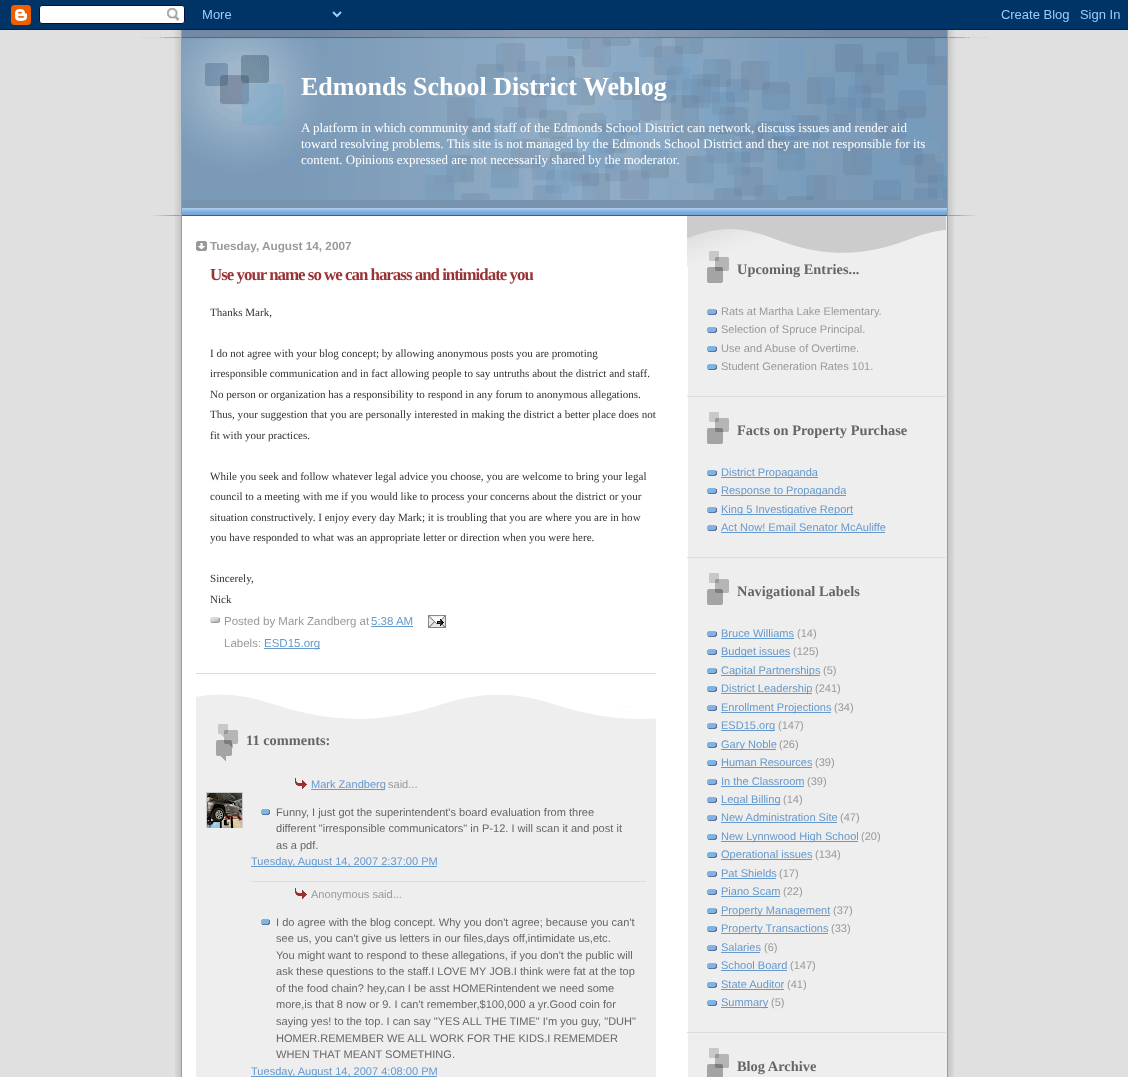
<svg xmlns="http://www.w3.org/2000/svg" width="1128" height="1077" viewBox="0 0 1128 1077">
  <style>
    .t1 { font: bold 26px Liberation Serif; fill: #fff; }
    .t2 { font: 13px Liberation Serif; fill: #fff; }
    .t3 { font: bold 11.75px Liberation Sans; fill: #999; }
    .t4 { font: bold 16.9px Liberation Serif; letter-spacing: -1px; fill: #933; }
    .t5 { font: 11.05px Liberation Serif; fill: #333; }
    .t6 { font: 11.5px Liberation Sans; fill: #999; }
    .t7 { font: 11.5px Liberation Sans; fill: #69c; }
    .t8 { font: bold 14.4px Liberation Serif; fill: #666; }
    .t9 { font: 11.05px Liberation Sans; fill: #69c; }
    .t10 { font: 11.05px Liberation Sans; fill: #999; }
    .t11 { font: 11.05px Liberation Sans; fill: #666; }
  </style>
  <defs>
    <clipPath id="clip1"><rect x="206" y="792" width="37" height="36"/></clipPath>
  </defs>
  <rect width="100%" height="100%" fill="#e0e0e0"/>
  <image x="0" y="0" width="1128" height="30" href="images/1.png"/>
  <image x="175" y="216" width="779" height="861" href="images/2.png"/>
  <image x="141" y="30" width="847" height="185" href="images/3.png"/>
  <image x="152" y="200" width="825" height="16" href="images/4.png"/>
  <text x="301" y="95" class="t1">Edmonds School District Weblog</text>
  <text x="301" y="132" class="t2">A platform in which community and staff of the Edmonds School District can network, discuss issues and render aid</text>
  <text x="301" y="148" class="t2">toward resolving problems. This site is not managed by the Edmonds School District and they are not responsible for its</text>
  <text x="301" y="164" class="t2">content. Opinions expressed are not necessarily shared by the moderator.</text>
  <image x="196" y="241" width="11" height="10" href="images/5.png"/>
  <text x="210" y="250" class="t3">Tuesday, August 14, 2007</text>
  <rect x="196" y="673" width="460" height="1" fill="#ddd"/>
  <text x="210" y="280" class="t4">Use your name so we can harass and intimidate you</text>
  <text x="210" y="316" class="t5">Thanks Mark,</text>
  <text x="210" y="357" class="t5">I do not agree with your blog concept; by allowing anonymous posts you are promoting</text>
  <text x="210" y="377" class="t5">irresponsible communication and in fact allowing people to say untruths about the district and staff.</text>
  <text x="210" y="398" class="t5">No person or organization has a responsibility to respond in any forum to anonymous allegations.</text>
  <text x="210" y="418" class="t5">Thus, your suggestion that you are personally interested in making the district a better place does not</text>
  <text x="210" y="439" class="t5">fit with your practices.</text>
  <text x="210" y="480" class="t5">While you seek and follow whatever legal advice you choose, you are welcome to bring your legal</text>
  <text x="210" y="500" class="t5">council to a meeting with me if you would like to process your concerns about the district or your</text>
  <text x="210" y="521" class="t5">situation constructively. I enjoy every day Mark; it is troubling that you are where you are in how</text>
  <text x="210" y="541" class="t5">you have responded to what was an appropriate letter or direction when you were here.</text>
  <text x="210" y="582" class="t5">Sincerely,</text>
  <text x="210" y="603" class="t5">Nick</text>
  <image x="210" y="617" width="10" height="6" href="images/6.png"/>
  <text x="224" y="625" class="t6">Posted by Mark Zandberg at</text>
  <text x="371" y="625" class="t7">5:38 AM</text>
  <rect x="371" y="626" width="42" height="1" fill="#69c"/>
  <image x="428" y="615" width="18" height="13" href="images/7.png"/>
  <text x="224" y="647" class="t6">Labels:</text>
  <rect x="264" y="648" width="56" height="1" fill="#69c"/>
  <text x="264" y="647" class="t7">ESD15.org</text>
  <rect x="196" y="695" width="460" height="382" fill="#eee"/>
  <image x="196" y="694" width="460" height="25" href="images/8.png"/>
  <image x="216" y="724" width="22" height="37" href="images/9.png"/>
  <text x="246" y="745" class="t8">11 comments:</text>
  <image x="295" y="778" width="12" height="11" href="images/10.png"/>
  <rect x="311" y="789" width="74" height="1" fill="#69c"/>
  <text x="311" y="788" class="t9">Mark Zandberg</text>
  <text x="388" y="788" class="t10">said...</text>
  <g clip-path="url(#clip1)">
    <rect x="206.5" y="792.5" width="36" height="36" fill="none" stroke="#ccc"/>
  </g>
  <image x="207" y="793" width="35" height="35" href="images/11.png"/>
  <image x="261" y="809" width="9" height="6" href="images/12.png"/>
  <text x="276" y="816" class="t11">Funny, I just got the superintendent's board evaluation from three</text>
  <text x="276" y="832" class="t11">different "irresponsible communicators" in P-12. I will scan it and post it</text>
  <text x="276" y="849" class="t11">as a pdf.</text>
  <rect x="251" y="881" width="395" height="1" fill="#ddd"/>
  <rect x="251" y="866" width="186" height="1" fill="#69c"/>
  <text x="251" y="865" class="t9">Tuesday, August 14, 2007 2:37:00 PM</text>
  <image x="295" y="888" width="12" height="11" href="images/10.png"/>
  <text x="311" y="898" class="t10">Anonymous said...</text>
  <image x="261" y="919" width="9" height="6" href="images/12.png"/>
  <text x="276" y="926" class="t11">I do agree with the blog concept. Why you don't agree; because you can't</text>
  <text x="276" y="942" class="t11">see us, you can't give us letters in our files,days off,intimidate us,etc.</text>
  <text x="276" y="959" class="t11">You might want to respond to these allegations, if you don't the public will</text>
  <text x="276" y="975" class="t11">ask these questions to the staff.I LOVE MY JOB.I think were fat at the top</text>
  <text x="276" y="992" class="t11">of the food chain? hey,can I be asst HOMERintendent we need some</text>
  <text x="276" y="1008" class="t11">more,is that 8 now or 9. I can't remember,$100,000 a yr.Good coin for</text>
  <text x="276" y="1025" class="t11">saying yes! to the top. I can say "YES ALL THE TIME" I'm you guy, "DUH"</text>
  <text x="276" y="1042" class="t11">HOMER.REMEMBER WE ALL WORK FOR THE KIDS.I REMEMDER</text>
  <text x="276" y="1058" class="t11">WHEN THAT MEANT SOMETHING.</text>
  <rect x="251" y="1076" width="186" height="1" fill="#69c"/>
  <text x="251" y="1075" class="t9">Tuesday, August 14, 2007 4:08:00 PM</text>
  <image x="687" y="216" width="259" height="51" href="images/13.png"/>
  <rect x="687" y="396" width="259" height="1" fill="#ddd"/>
  <image x="707" y="251" width="22" height="32" href="images/14.png"/>
  <text x="737" y="274" class="t8">Upcoming Entries...</text>
  <image x="707" y="309" width="10" height="6" href="images/15.png"/>
  <text x="721" y="315" class="t10">Rats at Martha Lake Elementary.</text>
  <image x="707" y="327" width="10" height="6" href="images/15.png"/>
  <text x="721" y="333" class="t10">Selection of Spruce Principal.</text>
  <image x="707" y="346" width="10" height="6" href="images/15.png"/>
  <text x="721" y="352" class="t10">Use and Abuse of Overtime.</text>
  <image x="707" y="364" width="10" height="6" href="images/15.png"/>
  <text x="721" y="370" class="t10">Student Generation Rates 101.</text>
  <rect x="687" y="557" width="259" height="1" fill="#ddd"/>
  <image x="707" y="412" width="22" height="32" href="images/16.png"/>
  <text x="737" y="435" class="t8">Facts on Property Purchase</text>
  <image x="707" y="470" width="10" height="6" href="images/15.png"/>
  <rect x="721" y="477" width="97" height="1" fill="#69c"/>
  <text x="721" y="476" class="t9">District Propaganda</text>
  <image x="707" y="488" width="10" height="6" href="images/15.png"/>
  <rect x="721" y="495" width="125" height="1" fill="#69c"/>
  <text x="721" y="494" class="t9">Response to Propaganda</text>
  <image x="707" y="507" width="10" height="6" href="images/15.png"/>
  <rect x="721" y="514" width="132" height="1" fill="#69c"/>
  <text x="721" y="513" class="t9">King 5 Investigative Report</text>
  <image x="707" y="525" width="10" height="6" href="images/15.png"/>
  <text x="721" y="531" class="t9">Act Now! Email Senator McAuliffe</text>
  <rect x="721" y="532" width="164" height="1" fill="#69c"/>
  <rect x="687" y="1032" width="259" height="1" fill="#ddd"/>
  <image x="707" y="573" width="22" height="32" href="images/16.png"/>
  <text x="737" y="596" class="t8">Navigational Labels</text>
  <image x="707" y="631" width="10" height="6" href="images/15.png"/>
  <text x="721" y="637" class="t9">Bruce Williams</text>
  <rect x="721" y="638" width="73" height="1" fill="#69c"/>
  <text x="797" y="637" class="t10">(14)</text>
  <image x="707" y="649" width="10" height="6" href="images/15.png"/>
  <rect x="721" y="656" width="69" height="1" fill="#69c"/>
  <text x="721" y="655" class="t9">Budget issues</text>
  <text x="793" y="655" class="t10">(125)</text>
  <image x="707" y="668" width="10" height="6" href="images/15.png"/>
  <rect x="721" y="675" width="99" height="1" fill="#69c"/>
  <text x="721" y="674" class="t9">Capital Partnerships</text>
  <text x="823" y="674" class="t10">(5)</text>
  <image x="707" y="686" width="10" height="6" href="images/15.png"/>
  <rect x="721" y="693" width="91" height="1" fill="#69c"/>
  <text x="721" y="692" class="t9">District Leadership</text>
  <text x="815" y="692" class="t10">(241)</text>
  <image x="707" y="705" width="10" height="6" href="images/15.png"/>
  <rect x="721" y="712" width="110" height="1" fill="#69c"/>
  <text x="721" y="711" class="t9">Enrollment Projections</text>
  <text x="834" y="711" class="t10">(34)</text>
  <image x="707" y="723" width="10" height="6" href="images/15.png"/>
  <rect x="721" y="730" width="54" height="1" fill="#69c"/>
  <text x="721" y="729" class="t9">ESD15.org</text>
  <text x="778" y="729" class="t10">(147)</text>
  <image x="707" y="742" width="10" height="6" href="images/15.png"/>
  <rect x="721" y="749" width="55" height="1" fill="#69c"/>
  <text x="721" y="748" class="t9">Gary Noble</text>
  <text x="779" y="748" class="t10">(26)</text>
  <image x="707" y="760" width="10" height="6" href="images/15.png"/>
  <text x="721" y="766" class="t9">Human Resources</text>
  <rect x="721" y="767" width="91" height="1" fill="#69c"/>
  <text x="815" y="766" class="t10">(39)</text>
  <image x="707" y="779" width="10" height="6" href="images/15.png"/>
  <text x="721" y="785" class="t9">In the Classroom</text>
  <rect x="721" y="786" width="83" height="1" fill="#69c"/>
  <text x="807" y="785" class="t10">(39)</text>
  <image x="707" y="797" width="10" height="6" href="images/15.png"/>
  <rect x="721" y="804" width="59" height="1" fill="#69c"/>
  <text x="721" y="803" class="t9">Legal Billing</text>
  <text x="783" y="803" class="t10">(14)</text>
  <image x="707" y="815" width="10" height="6" href="images/15.png"/>
  <text x="721" y="821" class="t9">New Administration Site</text>
  <rect x="721" y="822" width="116" height="1" fill="#69c"/>
  <text x="840" y="821" class="t10">(47)</text>
  <image x="707" y="834" width="10" height="6" href="images/15.png"/>
  <rect x="721" y="841" width="137" height="1" fill="#69c"/>
  <text x="721" y="840" class="t9">New Lynnwood High School</text>
  <text x="861" y="840" class="t10">(20)</text>
  <image x="707" y="852" width="10" height="6" href="images/15.png"/>
  <rect x="721" y="859" width="91" height="1" fill="#69c"/>
  <text x="721" y="858" class="t9">Operational issues</text>
  <text x="815" y="858" class="t10">(134)</text>
  <image x="707" y="871" width="10" height="6" href="images/15.png"/>
  <text x="721" y="877" class="t9">Pat Shields</text>
  <rect x="721" y="878" width="55" height="1" fill="#69c"/>
  <text x="779" y="877" class="t10">(17)</text>
  <image x="707" y="889" width="10" height="6" href="images/15.png"/>
  <text x="721" y="895" class="t9">Piano Scam</text>
  <rect x="721" y="896" width="59" height="1" fill="#69c"/>
  <text x="783" y="895" class="t10">(22)</text>
  <image x="707" y="908" width="10" height="6" href="images/15.png"/>
  <rect x="721" y="915" width="109" height="1" fill="#69c"/>
  <text x="721" y="914" class="t9">Property Management</text>
  <text x="833" y="914" class="t10">(37)</text>
  <image x="707" y="926" width="10" height="6" href="images/15.png"/>
  <rect x="721" y="933" width="107" height="1" fill="#69c"/>
  <text x="721" y="932" class="t9">Property Transactions</text>
  <text x="831" y="932" class="t10">(33)</text>
  <image x="707" y="945" width="10" height="6" href="images/15.png"/>
  <text x="721" y="951" class="t9">Salaries</text>
  <rect x="721" y="952" width="39" height="1" fill="#69c"/>
  <text x="764" y="951" class="t10">(6)</text>
  <image x="707" y="963" width="10" height="6" href="images/15.png"/>
  <text x="721" y="969" class="t9">School Board</text>
  <rect x="721" y="970" width="66" height="1" fill="#69c"/>
  <text x="790" y="969" class="t10">(147)</text>
  <image x="707" y="982" width="10" height="6" href="images/15.png"/>
  <text x="721" y="988" class="t9">State Auditor</text>
  <rect x="721" y="989" width="63" height="1" fill="#69c"/>
  <text x="787" y="988" class="t10">(41)</text>
  <image x="707" y="1000" width="10" height="6" href="images/15.png"/>
  <rect x="721" y="1007" width="47" height="1" fill="#69c"/>
  <text x="721" y="1006" class="t9">Summary</text>
  <text x="771" y="1006" class="t10">(5)</text>
  <image x="707" y="1048" width="22" height="29" href="images/17.png"/>
  <text x="737" y="1071" class="t8">Blog Archive</text>
</svg>
